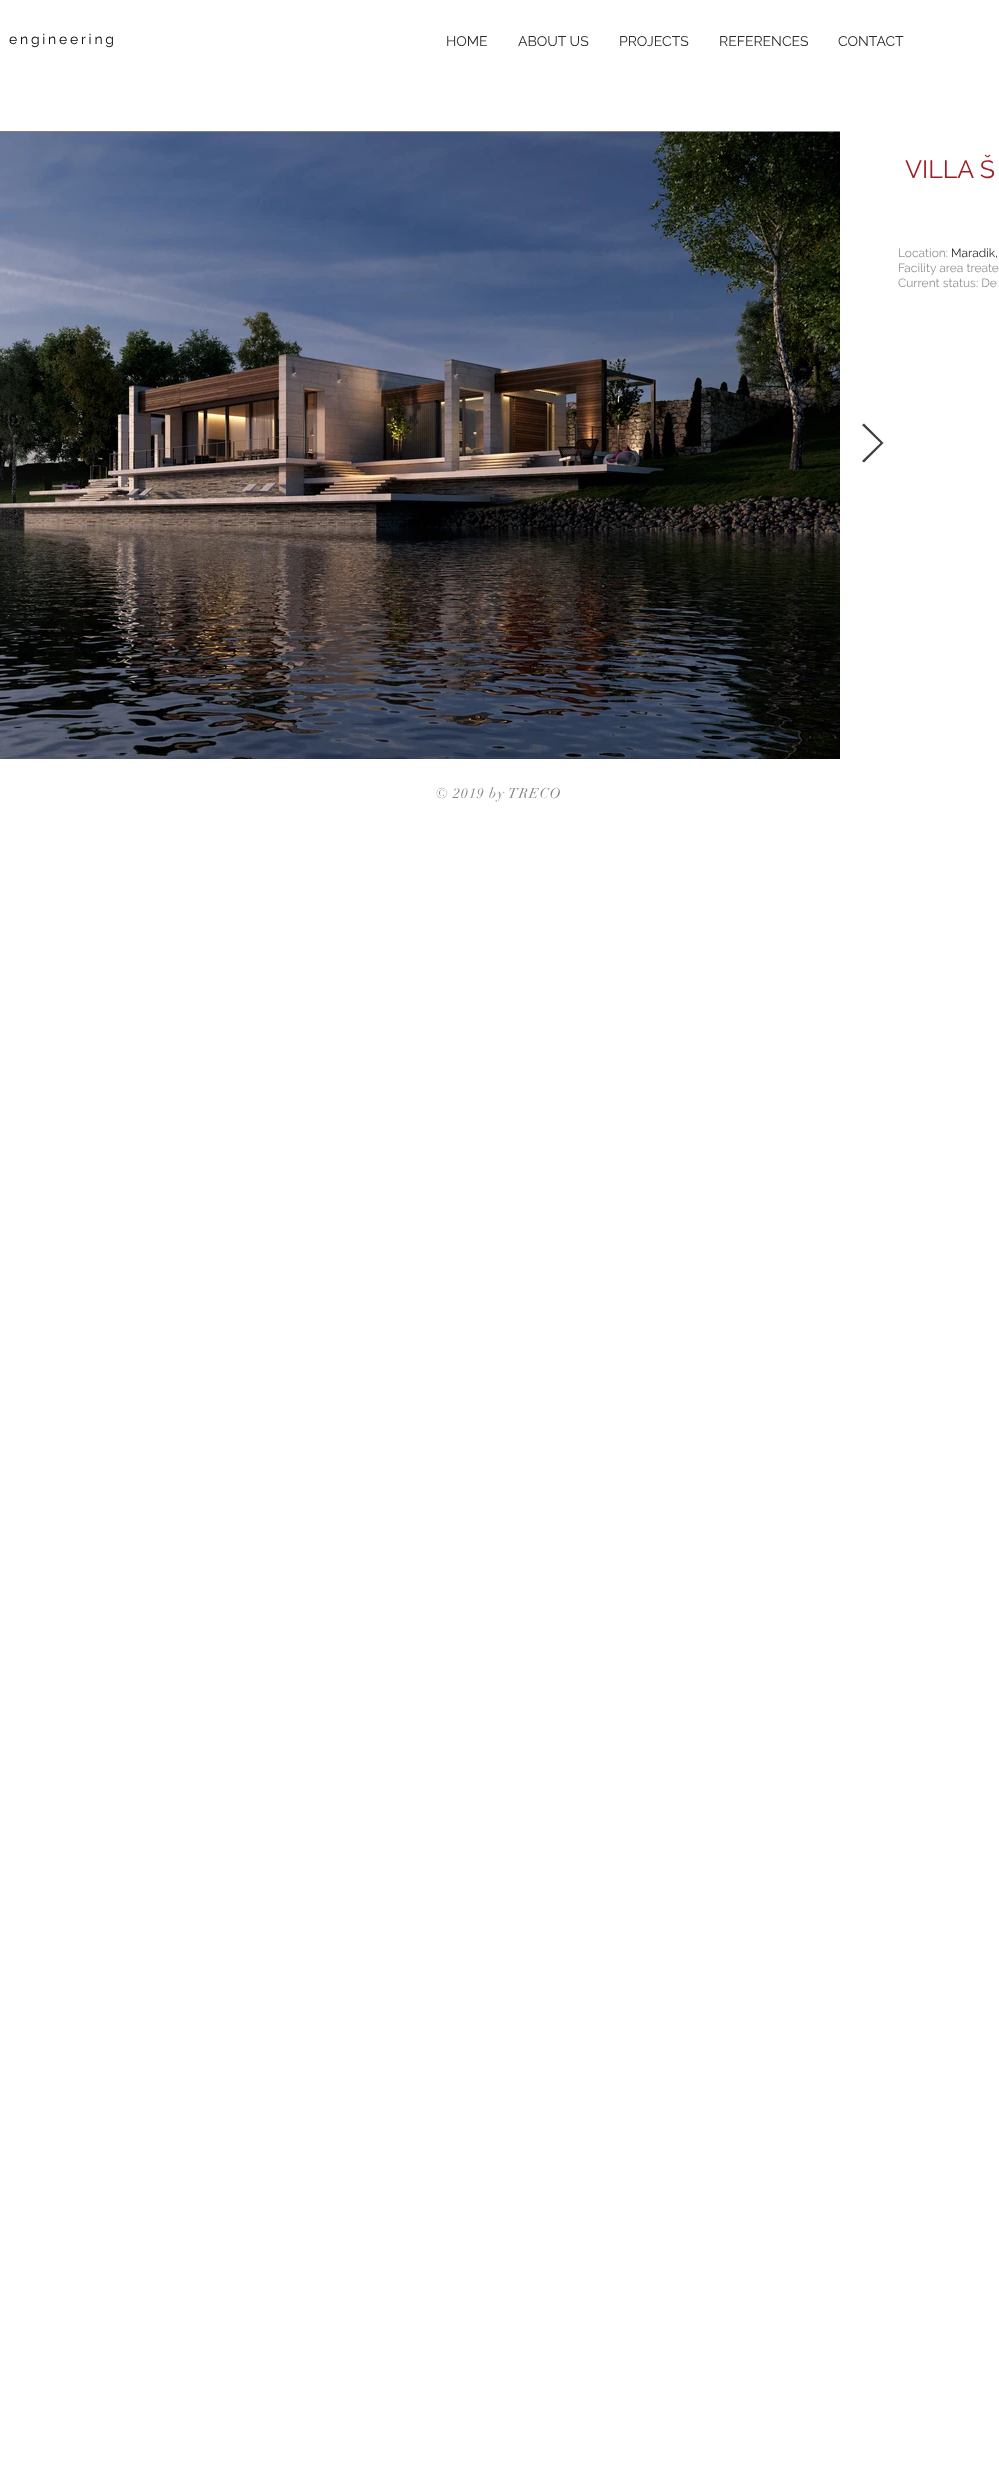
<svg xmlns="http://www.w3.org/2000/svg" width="999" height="2474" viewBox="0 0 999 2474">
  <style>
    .t1 { font: 14px Raleway; letter-spacing: 2.75px; fill: #000; }
    .t2 { font: 14px Raleway; fill: #2a2a2a; }
    .t3 { font: 25px Raleway; fill: #a01f24; }
    .t4 { font: 12px Raleway; fill: #959595; }
    .t5 { font: 12px Raleway; fill: #2a2a2a; }
    .t6 { font: 14px didot; letter-spacing: 1.1px; fill: #808080; }
  </style>
  <rect width="100%" height="100%" fill="#fff"/>
  <text x="9" y="44" class="t1">engineering</text>
  <text x="446" y="46" class="t2">HOME</text>
  <text x="518" y="46" class="t2">ABOUT US</text>
  <text x="619" y="46" class="t2">PROJECTS</text>
  <text x="719" y="46" class="t2">REFERENCES</text>
  <text x="838" y="46" class="t2">CONTACT</text>
  <rect x="0" y="131" width="840" height="1" fill="#808080"/>
  <image x="0" y="132" width="840" height="627" href="images/1.png"/>
  <path d="M862 425L864 423.5L883.5 443L864 462.5L862 461L880.5 443Z" fill="#3f3f3f"/>
  <text x="905" y="178" class="t3">VILLA Š</text>
  <text x="898" y="257" class="t4">Location:</text>
  <text x="951" y="257" class="t5">Maradik,</text>
  <text x="898" y="272" class="t4">Facility area treate</text>
  <text x="898" y="287" class="t4">Current status: De</text>
  <text x="436" y="798" class="t6">© 2019 by TRECO</text>
</svg>
